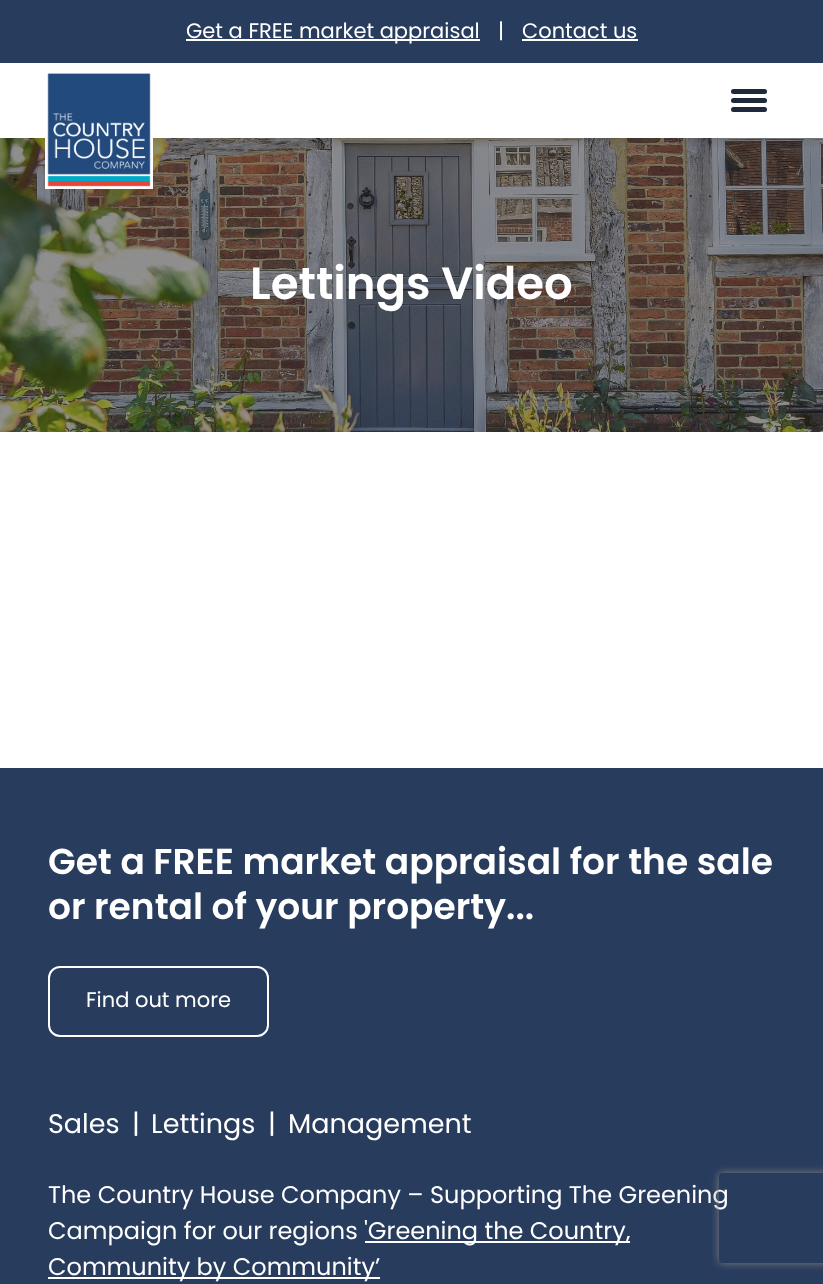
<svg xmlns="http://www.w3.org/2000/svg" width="823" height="1284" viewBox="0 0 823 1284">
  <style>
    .t1 { font: 21px Poppins; fill: #fff; }
    .t2 { font: 600 45px Poppins; fill: #fff; }
    .t3 { font: 600 36px Poppins; fill: #fff; }
    .t4 { font: 27px Poppins; fill: #fff; }
    .t5 { font: 24px Poppins; fill: #fff; }
  </style>
  <defs>
    <clipPath id="clip1"><rect x="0" y="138" width="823" height="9"/></clipPath>
    <clipPath id="clip2"><path d="M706 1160H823V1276H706ZM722 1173H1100C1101.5 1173 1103 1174.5 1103 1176V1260C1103 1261.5 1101.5 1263 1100 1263H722C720.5 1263 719 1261.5 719 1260V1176C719 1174.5 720.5 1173 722 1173Z" clip-rule="evenodd"/></clipPath>
  </defs>
  <rect width="100%" height="100%" fill="#fff"/>
  <rect x="0" y="0" width="823" height="63" fill="#283c5e"/>
  <rect x="186" y="39" width="294" height="2" fill="#fff"/>
  <text x="186" y="38" class="t1">Get a FREE market appraisal</text>
  <text x="498" y="38" class="t1">|</text>
  <text x="522" y="38" class="t1">Contact us</text>
  <rect x="522" y="39" width="116" height="2" fill="#fff"/>
  <image x="0" y="138" width="823" height="294" href="images/2.png"/>
  <g clip-path="url(#clip1)">
    <rect x="2" y="71" width="820" height="72" fill="#0000001a" filter="blur(4.5px)"/>
  </g>
  <image x="45" y="73" width="108" height="116" href="images/1.png"/>
  <rect x="731" y="89" width="36" height="5" rx="2.5" fill="#1e293b"/>
  <rect x="731" y="98" width="36" height="5" rx="2.5" fill="#1e293b"/>
  <rect x="731" y="107" width="36" height="5" rx="2.5" fill="#1e293b"/>
  <text x="250" y="299" class="t2">Lettings Video</text>
  <rect x="0" y="768" width="823" height="516" fill="#283c5e"/>
  <text x="48" y="874" class="t3">Get a FREE market appraisal for the sale</text>
  <text x="48" y="919" class="t3">or rental of your property...</text>
  <rect x="49" y="967" width="219" height="69" rx="11" fill="none" stroke="#fff" stroke-width="2"/>
  <text x="86" y="1007" class="t1">Find out more</text>
  <text x="48" y="1133" class="t4">Sales</text>
  <text x="132" y="1133" class="t4">|</text>
  <text x="151" y="1133" class="t4">Lettings</text>
  <text x="268" y="1133" class="t4">|</text>
  <text x="288" y="1133" class="t4">Management</text>
  <text x="48" y="1203" class="t5">The Country House Company – Supporting The Greening</text>
  <text x="48" y="1239" class="t5">Campaign for our regions</text>
  <rect x="365" y="1241" width="265" height="2" fill="#fff"/>
  <text x="364" y="1239" class="t5">'Greening the Country,</text>
  <rect x="48" y="1277" width="332" height="2" fill="#fff"/>
  <text x="48" y="1275" class="t5">Community by Community’</text>
  <g clip-path="url(#clip2)">
    <rect x="719" y="1173" width="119" height="90" rx="3" fill="#808080" filter="blur(4px)"/>
  </g>
</svg>
